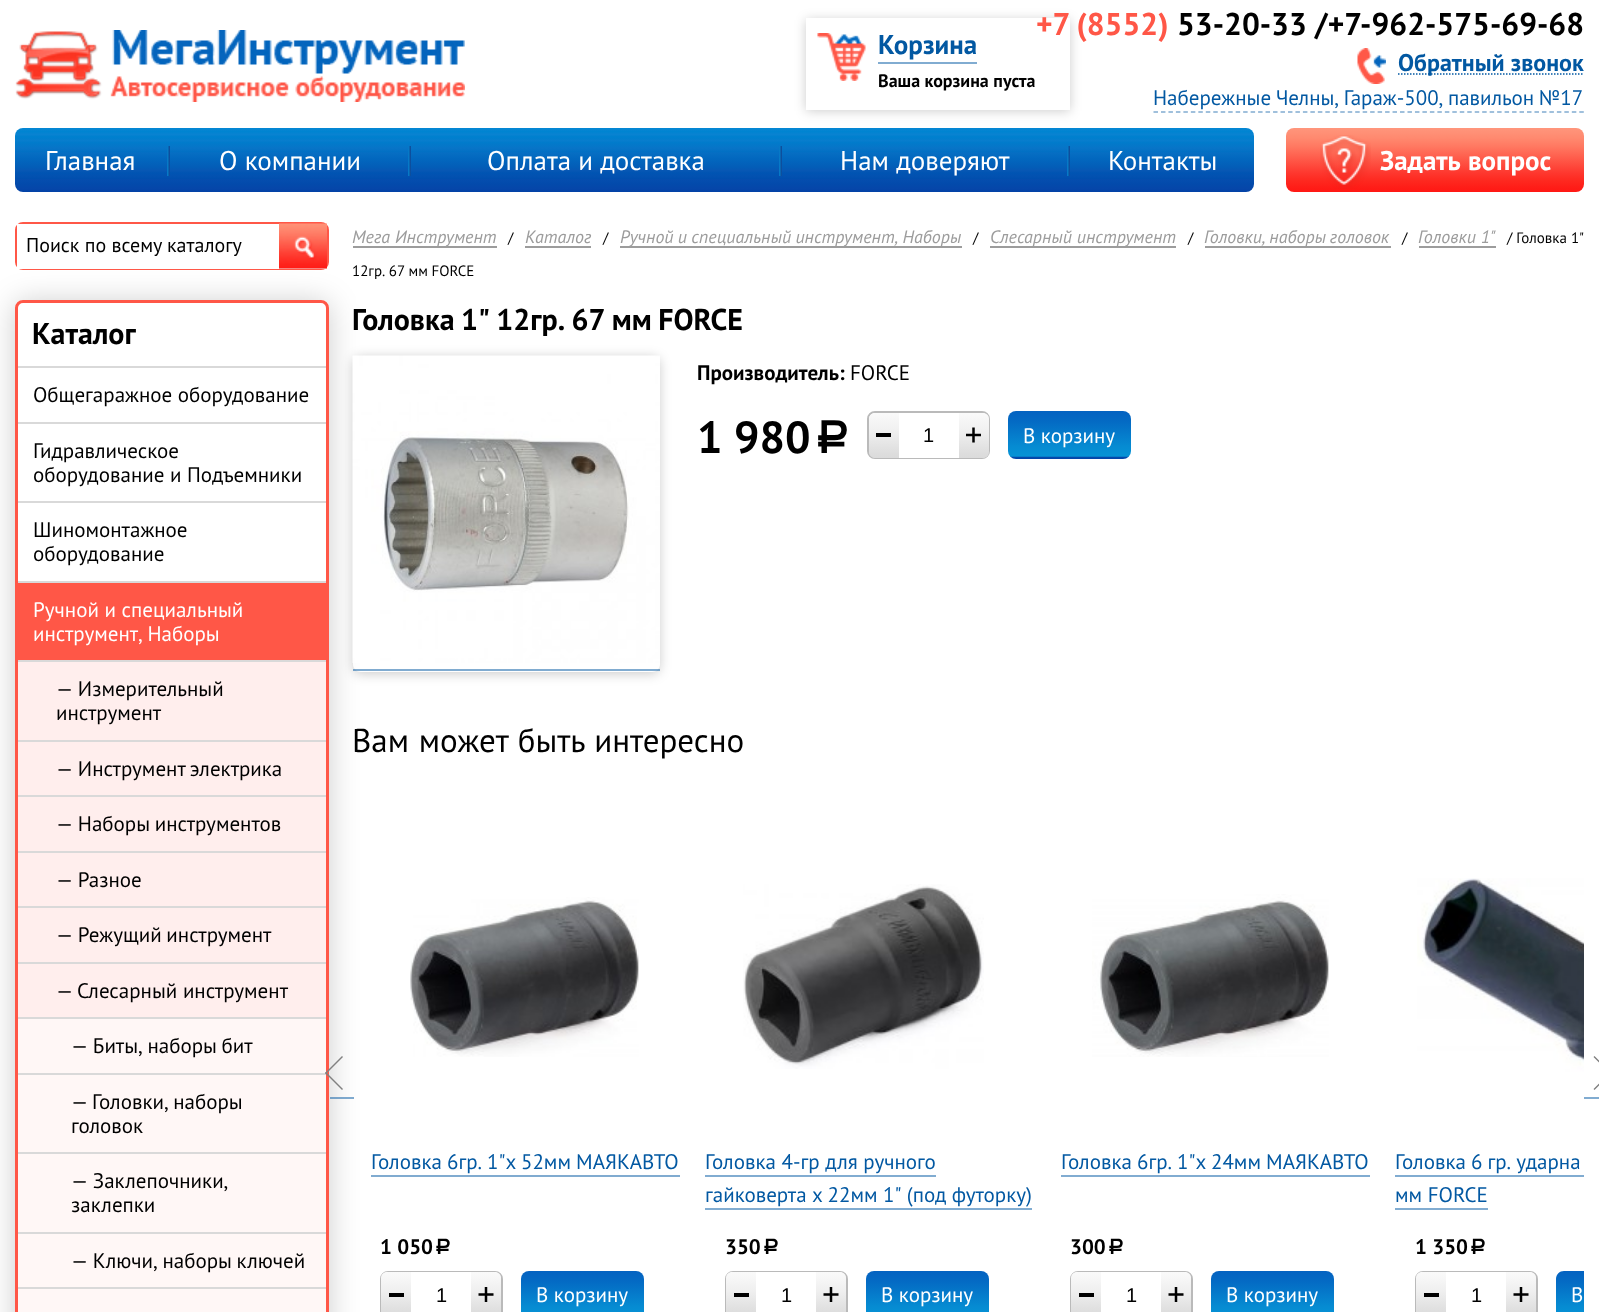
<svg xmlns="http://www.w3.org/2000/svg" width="1599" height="1312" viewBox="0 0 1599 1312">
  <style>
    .t1 { font: bold 27px PT Sans; fill: #0258a2; }
    .t2 { font: bold 18px PT Sans; fill: #000; }
    .t3 { font: bold 31.5px PT Sans; fill: #ff5747; }
    .t4 { font: bold 31.5px PT Sans; fill: #000; }
    .t5 { font: bold 24px PT Sans; fill: #0258a2; }
    .t6 { font: 21px PT Sans; fill: #0258a2; }
    .t7 { font: 27px PT Sans; fill: #fff; }
    .t8 { font: bold 27px PT Sans; fill: #fff; }
    .t9 { font: 20px PT Sans; fill: #000; }
    .t10 { font: bold 30px PT Sans; fill: #000; }
    .t11 { font: 21px PT Sans; fill: #000; }
    .t12 { font: 21px PT Sans; fill: #fff; }
    .t13 { font: italic 18px PT Sans; fill: #9c9c9c; }
    .t14 { font: 15px PT Sans; fill: #000; }
    .t15 { font: bold 21px PT Sans; fill: #000; }
    .t16 { font: bold 45px PT Sans; fill: #000; }
    .t17 { font: bold 45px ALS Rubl; fill: #000; }
    .t18 { font: 20px Liberation Sans; fill: #000; }
    .t19 { font: 33px PT Sans; fill: #000; }
    .t20 { font: bold 21px ALS Rubl; fill: #000; }
  </style>
  <defs>
    <linearGradient id="g1" gradientUnits="userSpaceOnUse" x1="635" y1="127" x2="635" y2="192"><stop offset="0" stop-color="#0387d4"/><stop offset="0.05" stop-color="#0485d2"/><stop offset="0.07" stop-color="#0084d1"/><stop offset="0.12" stop-color="#0a82d1"/><stop offset="0.14" stop-color="#0081cf"/><stop offset="0.17" stop-color="#007fce"/><stop offset="0.21" stop-color="#087dcd"/><stop offset="0.24" stop-color="#017bcb"/><stop offset="0.33" stop-color="#0874c7"/><stop offset="0.38" stop-color="#0270c4"/><stop offset="0.4" stop-color="#066ec3"/><stop offset="0.48" stop-color="#0268bf"/><stop offset="0.62" stop-color="#035db7"/><stop offset="0.67" stop-color="#0757b4"/><stop offset="0.71" stop-color="#0054b2"/><stop offset="0.76" stop-color="#0351b0"/><stop offset="0.79" stop-color="#004fae"/><stop offset="0.81" stop-color="#054dae"/><stop offset="0.88" stop-color="#034aab"/><stop offset="0.95" stop-color="#0646a9"/><stop offset="1" stop-color="#0242a6"/></linearGradient>
    <clipPath id="clip1"><path d="M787 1H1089V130H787ZM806 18H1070V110H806Z" clip-rule="evenodd"/></clipPath>
    <linearGradient id="g2" gradientUnits="userSpaceOnUse" x1="167" y1="161" x2="170" y2="161"><stop offset="0" stop-color="#0584d1"/><stop offset="1" stop-color="#0f4492"/></linearGradient>
    <linearGradient id="g3" gradientUnits="userSpaceOnUse" x1="408" y1="161" x2="411" y2="161"><stop offset="0" stop-color="#0584d1"/><stop offset="1" stop-color="#0f4492"/></linearGradient>
    <linearGradient id="g4" gradientUnits="userSpaceOnUse" x1="779" y1="161" x2="782" y2="161"><stop offset="0" stop-color="#0584d1"/><stop offset="1" stop-color="#0f4492"/></linearGradient>
    <linearGradient id="g5" gradientUnits="userSpaceOnUse" x1="1067" y1="161" x2="1070" y2="161"><stop offset="0" stop-color="#0584d1"/><stop offset="1" stop-color="#0f4492"/></linearGradient>
    <linearGradient id="g6" gradientUnits="userSpaceOnUse" x1="1435" y1="127" x2="1435" y2="192"><stop offset="0" stop-color="#ff977d"/><stop offset="0.17" stop-color="#ff896f"/><stop offset="0.31" stop-color="#ff7760"/><stop offset="0.71" stop-color="#fe372e"/><stop offset="0.83" stop-color="#fe281f"/><stop offset="0.95" stop-color="#ff1b16"/><stop offset="1" stop-color="#ff1914"/></linearGradient>
    <clipPath id="clip2"><path d="M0 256H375V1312H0ZM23 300H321C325.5 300 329 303.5 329 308V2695C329 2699.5 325.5 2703 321 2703H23C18.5 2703 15 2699.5 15 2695V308C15 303.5 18.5 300 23 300Z" clip-rule="evenodd"/></clipPath>
    <clipPath id="clip3"><path d="M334 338H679V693H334ZM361 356H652C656.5 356 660 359.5 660 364V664C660 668.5 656.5 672 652 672H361C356.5 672 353 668.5 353 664V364C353 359.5 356.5 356 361 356Z" clip-rule="evenodd"/></clipPath>
    <linearGradient id="g7" gradientUnits="userSpaceOnUse" x1="884" y1="413" x2="884" y2="458"><stop offset="0" stop-color="#fafafa"/><stop offset="0.43" stop-color="#efefef"/><stop offset="0.93" stop-color="#dcdcdc"/><stop offset="1" stop-color="#dbdbdb"/></linearGradient>
    <linearGradient id="g8" gradientUnits="userSpaceOnUse" x1="974" y1="413" x2="974" y2="458"><stop offset="0" stop-color="#fafafa"/><stop offset="0.43" stop-color="#efefef"/><stop offset="0.93" stop-color="#dcdcdc"/><stop offset="1" stop-color="#dbdbdb"/></linearGradient>
    <linearGradient id="g9" gradientUnits="userSpaceOnUse" x1="1070" y1="411" x2="1070" y2="459"><stop offset="0" stop-color="#0462c1"/><stop offset="0.23" stop-color="#046bc4"/><stop offset="0.74" stop-color="#068bd2"/><stop offset="0.94" stop-color="#0693d5"/><stop offset="0.97" stop-color="#0346a9"/><stop offset="1" stop-color="#0346a9"/></linearGradient>
    <linearGradient id="g10" gradientUnits="userSpaceOnUse" x1="396" y1="1272" x2="396" y2="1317"><stop offset="0" stop-color="#fafafa"/><stop offset="0.43" stop-color="#efefef"/><stop offset="0.93" stop-color="#dcdcdc"/><stop offset="1" stop-color="#dbdbdb"/></linearGradient>
    <linearGradient id="g11" gradientUnits="userSpaceOnUse" x1="486" y1="1272" x2="486" y2="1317"><stop offset="0" stop-color="#fafafa"/><stop offset="0.43" stop-color="#efefef"/><stop offset="0.93" stop-color="#dcdcdc"/><stop offset="1" stop-color="#dbdbdb"/></linearGradient>
    <linearGradient id="g12" gradientUnits="userSpaceOnUse" x1="582" y1="1271" x2="582" y2="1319"><stop offset="0" stop-color="#0462c1"/><stop offset="0.23" stop-color="#046bc4"/><stop offset="0.74" stop-color="#068bd2"/><stop offset="0.94" stop-color="#0693d5"/><stop offset="0.97" stop-color="#0346a9"/><stop offset="1" stop-color="#0346a9"/></linearGradient>
    <linearGradient id="g13" gradientUnits="userSpaceOnUse" x1="741" y1="1272" x2="741" y2="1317"><stop offset="0" stop-color="#fafafa"/><stop offset="0.43" stop-color="#efefef"/><stop offset="0.93" stop-color="#dcdcdc"/><stop offset="1" stop-color="#dbdbdb"/></linearGradient>
    <linearGradient id="g14" gradientUnits="userSpaceOnUse" x1="831" y1="1272" x2="831" y2="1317"><stop offset="0" stop-color="#fafafa"/><stop offset="0.43" stop-color="#efefef"/><stop offset="0.93" stop-color="#dcdcdc"/><stop offset="1" stop-color="#dbdbdb"/></linearGradient>
    <linearGradient id="g15" gradientUnits="userSpaceOnUse" x1="927" y1="1271" x2="927" y2="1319"><stop offset="0" stop-color="#0462c1"/><stop offset="0.23" stop-color="#046bc4"/><stop offset="0.74" stop-color="#068bd2"/><stop offset="0.94" stop-color="#0693d5"/><stop offset="0.97" stop-color="#0346a9"/><stop offset="1" stop-color="#0346a9"/></linearGradient>
    <linearGradient id="g16" gradientUnits="userSpaceOnUse" x1="1086" y1="1272" x2="1086" y2="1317"><stop offset="0" stop-color="#fafafa"/><stop offset="0.43" stop-color="#efefef"/><stop offset="0.93" stop-color="#dcdcdc"/><stop offset="1" stop-color="#dbdbdb"/></linearGradient>
    <linearGradient id="g17" gradientUnits="userSpaceOnUse" x1="1176" y1="1272" x2="1176" y2="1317"><stop offset="0" stop-color="#fafafa"/><stop offset="0.43" stop-color="#efefef"/><stop offset="0.93" stop-color="#dcdcdc"/><stop offset="1" stop-color="#dbdbdb"/></linearGradient>
    <linearGradient id="g18" gradientUnits="userSpaceOnUse" x1="1272" y1="1271" x2="1272" y2="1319"><stop offset="0" stop-color="#0462c1"/><stop offset="0.23" stop-color="#046bc4"/><stop offset="0.74" stop-color="#068bd2"/><stop offset="0.94" stop-color="#0693d5"/><stop offset="0.97" stop-color="#0346a9"/><stop offset="1" stop-color="#0346a9"/></linearGradient>
    <linearGradient id="g19" gradientUnits="userSpaceOnUse" x1="1431" y1="1272" x2="1431" y2="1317"><stop offset="0" stop-color="#fafafa"/><stop offset="0.43" stop-color="#efefef"/><stop offset="0.93" stop-color="#dcdcdc"/><stop offset="1" stop-color="#dbdbdb"/></linearGradient>
    <linearGradient id="g20" gradientUnits="userSpaceOnUse" x1="1521" y1="1272" x2="1521" y2="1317"><stop offset="0" stop-color="#fafafa"/><stop offset="0.43" stop-color="#efefef"/><stop offset="0.93" stop-color="#dcdcdc"/><stop offset="1" stop-color="#dbdbdb"/></linearGradient>
    <linearGradient id="g21" gradientUnits="userSpaceOnUse" x1="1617" y1="1271" x2="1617" y2="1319"><stop offset="0" stop-color="#0462c1"/><stop offset="0.23" stop-color="#046bc4"/><stop offset="0.74" stop-color="#068bd2"/><stop offset="0.94" stop-color="#0693d5"/><stop offset="0.97" stop-color="#0346a9"/><stop offset="1" stop-color="#0346a9"/></linearGradient>
  </defs>
  <rect width="100%" height="100%" fill="#fff"/>
  <image x="15" y="30" width="450" height="72" href="images/1.png"/>
  <rect x="15" y="128" width="1239" height="64" rx="8" fill="url(#g1)"/>
  <g clip-path="url(#clip1)">
    <rect x="806" y="20" width="264" height="91" fill="#00000033" filter="blur(6px)"/>
  </g>
  <image x="817" y="33" width="49" height="48" href="images/2.png"/>
  <text x="878" y="54" class="t1">Корзина</text>
  <rect x="878" y="62" width="99" height="2" fill="#81acd1"/>
  <text x="878" y="87" class="t2">Ваша корзина пуста</text>
  <text x="1036" y="35" word-spacing="-2" class="t3">+7 (8552)</text>
  <text x="1177" y="35" class="t4">53-20-33 /+7-962-575-69-68</text>
  <path d="M1398 74H1584" fill="none" stroke="#0258a2" stroke-width="1.5" stroke-dasharray="1.5 1.5"/>
  <image x="1357" y="48" width="29" height="36" href="images/3.png"/>
  <text x="1398" y="71" class="t5">Обратный звонок</text>
  <text x="1153" y="105" word-spacing="-1" class="t6">Набережные Челны, Гараж-500, павильон №17</text>
  <path d="M1153.5 112H1584" fill="none" stroke="#81acd1" stroke-width="1.5" stroke-dasharray="4.5 2.97"/>
  <text x="45" y="170" class="t7">Главная</text>
  <rect x="167" y="146" width="3" height="30" fill="url(#g2)"/>
  <text x="219" y="170" class="t7">О компании</text>
  <rect x="408" y="146" width="3" height="30" fill="url(#g3)"/>
  <text x="487" y="170" class="t7">Оплата и доставка</text>
  <rect x="779" y="146" width="3" height="30" fill="url(#g4)"/>
  <text x="840" y="170" class="t7">Нам доверяют</text>
  <rect x="1067" y="146" width="3" height="30" fill="url(#g5)"/>
  <text x="1108" y="170" class="t7">Контакты</text>
  <rect x="1286" y="128" width="298" height="64" rx="8" fill="url(#g6)"/>
  <image x="1320" y="135" width="51" height="54" href="images/4.png"/>
  <text x="1380" y="170" word-spacing="1" class="t8">Задать вопрос</text>
  <g clip-path="url(#clip2)">
    <rect x="15" y="302" width="314" height="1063" rx="8" fill="#00000033" filter="blur(15px)"/>
  </g>
  <rect x="16" y="223" width="312" height="46" rx="7" fill="none" stroke="#ff5747" stroke-width="2"/>
  <rect x="17" y="224" width="262" height="45" fill="#fff"/>
  <text x="26" y="252" class="t9">Поиск по всему каталогу</text>
  <rect x="279" y="268" width="48" height="1" fill="#efefef"/>
  <image x="279" y="223" width="48" height="46" href="images/5.png"/>
  <rect x="16.5" y="301.5" width="311" height="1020" rx="6.5" fill="none" stroke="#ff5747" stroke-width="3"/>
  <text x="32" y="344" class="t10">Каталог</text>
  <rect x="18" y="366" width="308" height="2" fill="#d9d9d9"/>
  <text x="33" y="402" class="t11">Общегаражное оборудование</text>
  <rect x="18" y="422" width="308" height="2" fill="#d9d9d9"/>
  <text x="33" y="458" class="t11">Гидравлическое</text>
  <text x="33" y="482" class="t11">оборудование и Подъемники</text>
  <rect x="18" y="501" width="308" height="2" fill="#d9d9d9"/>
  <text x="33" y="537" class="t11">Шиномонтажное</text>
  <text x="33" y="561" class="t11">оборудование</text>
  <rect x="18" y="583" width="308" height="77" fill="#ff5747"/>
  <rect x="18" y="581" width="308" height="2" fill="#d9d9d9"/>
  <text x="33" y="617" class="t12">Ручной и специальный</text>
  <text x="33" y="641" word-spacing="-1" class="t12">инструмент, Наборы</text>
  <rect x="18" y="662" width="308" height="78" fill="#ffeeed"/>
  <rect x="18" y="660" width="308" height="2" fill="#d9d9d9"/>
  <text x="56" y="696" word-spacing="-1" class="t11">— Измерительный</text>
  <text x="56" y="720" class="t11">инструмент</text>
  <rect x="18" y="742" width="308" height="53" fill="#ffeeed"/>
  <rect x="18" y="740" width="308" height="2" fill="#d9d9d9"/>
  <text x="56" y="776" word-spacing="-1" class="t11">— Инструмент электрика</text>
  <rect x="18" y="797" width="308" height="54" fill="#ffeeed"/>
  <rect x="18" y="795" width="308" height="2" fill="#d9d9d9"/>
  <text x="56" y="831" word-spacing="-1" class="t11">— Наборы инструментов</text>
  <rect x="18" y="853" width="308" height="53" fill="#ffeeed"/>
  <rect x="18" y="851" width="308" height="2" fill="#d9d9d9"/>
  <text x="56" y="887" word-spacing="-1" class="t11">— Разное</text>
  <rect x="18" y="908" width="308" height="54" fill="#ffeeed"/>
  <rect x="18" y="906" width="308" height="2" fill="#d9d9d9"/>
  <text x="56" y="942" word-spacing="-1" class="t11">— Режущий инструмент</text>
  <rect x="18" y="964" width="308" height="53" fill="#ffeeed"/>
  <rect x="18" y="962" width="308" height="2" fill="#d9d9d9"/>
  <text x="56" y="998" class="t11">—</text>
  <text x="77" y="998" class="t11">Слесарный инструмент</text>
  <rect x="18" y="1019" width="308" height="54" fill="#fff7f6"/>
  <rect x="18" y="1017" width="308" height="2" fill="#d9d9d9"/>
  <text x="71" y="1053" word-spacing="-1" class="t11">— Биты, наборы бит</text>
  <rect x="18" y="1075" width="308" height="77" fill="#fff7f6"/>
  <rect x="18" y="1073" width="308" height="2" fill="#d9d9d9"/>
  <text x="71" y="1109" class="t11">—</text>
  <text x="92" y="1109" word-spacing="-1" class="t11">Головки, наборы</text>
  <text x="71" y="1133" class="t11">головок</text>
  <rect x="18" y="1154" width="308" height="78" fill="#fff7f6"/>
  <rect x="18" y="1152" width="308" height="2" fill="#d9d9d9"/>
  <text x="71" y="1188" word-spacing="-1" class="t11">— Заклепочники,</text>
  <text x="71" y="1212" class="t11">заклепки</text>
  <rect x="18" y="1234" width="308" height="53" fill="#fff7f6"/>
  <rect x="18" y="1232" width="308" height="2" fill="#d9d9d9"/>
  <text x="71" y="1268" word-spacing="-1" class="t11">— Ключи, наборы ключей</text>
  <rect x="18" y="1289" width="308" height="23" fill="#fff7f6"/>
  <rect x="18" y="1287" width="308" height="2" fill="#d9d9d9"/>
  <rect x="353" y="246" width="144" height="2" fill="#9c9c9c"/>
  <text x="352" y="243" class="t13">Мега Инструмент</text>
  <text x="508" y="243" class="t14">/</text>
  <rect x="525" y="246" width="66" height="2" fill="#9c9c9c"/>
  <text x="525" y="243" class="t13">Каталог</text>
  <text x="603" y="243" class="t14">/</text>
  <rect x="620" y="246" width="342" height="2" fill="#9c9c9c"/>
  <text x="620" y="243" word-spacing="-0.5" class="t13">Ручной и специальный инструмент, Наборы</text>
  <text x="973" y="243" class="t14">/</text>
  <rect x="990" y="246" width="186" height="2" fill="#9c9c9c"/>
  <text x="990" y="243" class="t13">Слесарный инструмент</text>
  <text x="1188" y="243" class="t14">/</text>
  <rect x="1205" y="246" width="186" height="2" fill="#9c9c9c"/>
  <text x="1204" y="243" word-spacing="-1" class="t13">Головки, наборы головок</text>
  <text x="1402" y="243" class="t14">/</text>
  <rect x="1419" y="246" width="77" height="2" fill="#9c9c9c"/>
  <text x="1418" y="243" class="t13">Головки 1"</text>
  <text x="1507" y="243" class="t14">/ Головка 1"</text>
  <text x="352" y="276" word-spacing="-0.5" class="t14">12гр. 67 мм FORCE</text>
  <text x="352" y="330" word-spacing="-1.25" class="t10">Головка 1" 12гр. 67 мм FORCE</text>
  <g clip-path="url(#clip3)">
    <rect x="353" y="357" width="307" height="317" rx="8" fill="#00000033" filter="blur(6px)"/>
  </g>
  <image x="352" y="355" width="308" height="308" href="images/6.png"/>
  <rect x="353" y="669" width="307" height="2" fill="#0258a280"/>
  <text x="697" y="380" class="t15">Производитель:</text>
  <text x="850" y="380" class="t11">FORCE</text>
  <text x="697" y="453" class="t16">1 980</text>
  <text x="811" y="453" class="t17">a</text>
  <rect x="868" y="412" width="121" height="46" rx="7" fill="none" stroke="#bababa" stroke-width="2"/>
  <path d="M875 413H899V458H875C871.5 458 869 455.5 869 452V419C869 415.5 871.5 413 875 413Z" fill="url(#g7)"/>
  <rect x="876" y="433" width="15" height="4" fill="#000"/>
  <rect x="899" y="457" width="60" height="1" fill="#fff"/>
  <text x="923" y="442" class="t18">1</text>
  <path d="M959 413H983C986.5 413 989 415.5 989 419V452C989 455.5 986.5 458 983 458H959Z" fill="url(#g8)"/>
  <image x="966" y="427" width="15" height="16" href="images/7.png"/>
  <rect x="1008" y="411" width="123" height="48" rx="8" fill="url(#g9)"/>
  <text x="1023" y="443" class="t12">В корзину</text>
  <text x="352" y="752" word-spacing="1" class="t19">Вам может быть интересно</text>
  <rect x="330" y="1097" width="24" height="2" fill="#0258a280"/>
  <path d="M325 1073L342 1056L343 1057L326 1074Z" fill="#808080"/>
  <path d="M325 1073L326 1072L343 1089L342 1090Z" fill="#808080"/>
  <rect x="1583" y="1097" width="16" height="2" fill="#81acd1"/>
  <path d="M1594.5 1056L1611.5 1073L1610.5 1074L1593.5 1057ZM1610.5 1072L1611.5 1073L1594.5 1090L1593.5 1089Z" fill="#808080"/>
  <image x="410" y="897" width="229" height="160" href="images/8.png"/>
  <text x="371" y="1169" word-spacing="-0.5" class="t6">Головка 6гр. 1"х 52мм МАЯКАВТО</text>
  <rect x="371" y="1175" width="309" height="2" fill="#80abd0"/>
  <text x="380" y="1254" class="t15">1 050</text>
  <text x="433" y="1254" class="t20">a</text>
  <rect x="381" y="1272" width="121" height="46" rx="7" fill="none" stroke="#bababa" stroke-width="2"/>
  <path d="M387 1272H411V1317H387C383.5 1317 381 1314.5 381 1311V1278C381 1274.5 383.5 1272 387 1272Z" fill="url(#g10)"/>
  <rect x="389" y="1293" width="15" height="4" fill="#000"/>
  <rect x="411" y="1272" width="60" height="1" fill="#fff"/>
  <text x="436" y="1302" class="t18">1</text>
  <path d="M471 1272H495C498.5 1272 501 1274.5 501 1278V1311C501 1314.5 498.5 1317 495 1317H471Z" fill="url(#g11)"/>
  <image x="478" y="1287" width="16" height="15" href="images/9.png"/>
  <rect x="521" y="1271" width="123" height="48" rx="8" fill="url(#g12)"/>
  <text x="536" y="1302" class="t12">В корзину</text>
  <image x="743" y="884" width="241" height="185" href="images/10.png"/>
  <text x="705" y="1169" class="t6">Головка 4-гр для ручного</text>
  <rect x="705" y="1175" width="231" height="2" fill="#81acd1"/>
  <text x="705" y="1202" word-spacing="-0.25" class="t6">гайковерта х 22мм 1" (под футорку)</text>
  <rect x="705" y="1208" width="327" height="2" fill="#81acd1"/>
  <text x="725" y="1254" class="t15">350</text>
  <text x="761" y="1254" class="t20">a</text>
  <rect x="726" y="1272" width="121" height="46" rx="7" fill="none" stroke="#bababa" stroke-width="2"/>
  <path d="M732 1272H756V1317H732C728.5 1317 726 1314.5 726 1311V1278C726 1274.5 728.5 1272 732 1272Z" fill="url(#g13)"/>
  <rect x="734" y="1293" width="15" height="4" fill="#000"/>
  <rect x="756" y="1272" width="60" height="1" fill="#fff"/>
  <text x="781" y="1302" class="t18">1</text>
  <path d="M816 1272H840C843.5 1272 846 1274.5 846 1278V1311C846 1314.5 843.5 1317 840 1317H816Z" fill="url(#g14)"/>
  <image x="823" y="1287" width="16" height="15" href="images/9.png"/>
  <rect x="866" y="1271" width="123" height="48" rx="8" fill="url(#g15)"/>
  <text x="881" y="1302" class="t12">В корзину</text>
  <image x="1092" y="894" width="237" height="163" href="images/11.png"/>
  <text x="1061" y="1169" word-spacing="-0.5" class="t6">Головка 6гр. 1"х 24мм МАЯКАВТО</text>
  <rect x="1061" y="1175" width="309" height="2" fill="#81acd1"/>
  <text x="1070" y="1254" class="t15">300</text>
  <text x="1106" y="1254" class="t20">a</text>
  <rect x="1071" y="1272" width="121" height="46" rx="7" fill="none" stroke="#bababa" stroke-width="2"/>
  <path d="M1077 1272H1101V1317H1077C1073.5 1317 1071 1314.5 1071 1311V1278C1071 1274.5 1073.5 1272 1077 1272Z" fill="url(#g16)"/>
  <rect x="1079" y="1293" width="15" height="4" fill="#000"/>
  <rect x="1101" y="1272" width="60" height="1" fill="#fff"/>
  <text x="1126" y="1302" class="t18">1</text>
  <path d="M1161 1272H1185C1188.5 1272 1191 1274.5 1191 1278V1311C1191 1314.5 1188.5 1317 1185 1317H1161Z" fill="url(#g17)"/>
  <image x="1168" y="1287" width="16" height="15" href="images/9.png"/>
  <rect x="1211" y="1271" width="123" height="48" rx="8" fill="url(#g18)"/>
  <text x="1226" y="1302" class="t12">В корзину</text>
  <image x="1417" y="878" width="167" height="221" href="images/12.png"/>
  <text x="1395" y="1169" word-spacing="-0.5" class="t6">Головка 6 гр. ударна</text>
  <rect x="1395" y="1175" width="189" height="2" fill="#81acd1"/>
  <text x="1395" y="1202" class="t6">мм FORCE</text>
  <rect x="1395" y="1208" width="93" height="2" fill="#81acd1"/>
  <text x="1415" y="1254" class="t15">1 350</text>
  <text x="1468" y="1254" class="t20">a</text>
  <rect x="1416" y="1272" width="121" height="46" rx="7" fill="none" stroke="#bababa" stroke-width="2"/>
  <path d="M1422 1272H1446V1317H1422C1418.5 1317 1416 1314.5 1416 1311V1278C1416 1274.5 1418.5 1272 1422 1272Z" fill="url(#g19)"/>
  <rect x="1424" y="1293" width="15" height="4" fill="#000"/>
  <rect x="1446" y="1272" width="60" height="1" fill="#fff"/>
  <text x="1471" y="1302" class="t18">1</text>
  <path d="M1506 1272H1530C1533.5 1272 1536 1274.5 1536 1278V1311C1536 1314.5 1533.5 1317 1530 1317H1506Z" fill="url(#g20)"/>
  <image x="1513" y="1287" width="16" height="15" href="images/9.png"/>
  <path d="M1564 1271H1584V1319H1564C1559.5 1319 1556 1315.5 1556 1311V1279C1556 1274.5 1559.5 1271 1564 1271Z" fill="url(#g21)"/>
  <text x="1571" y="1302" class="t12">В</text>
</svg>
